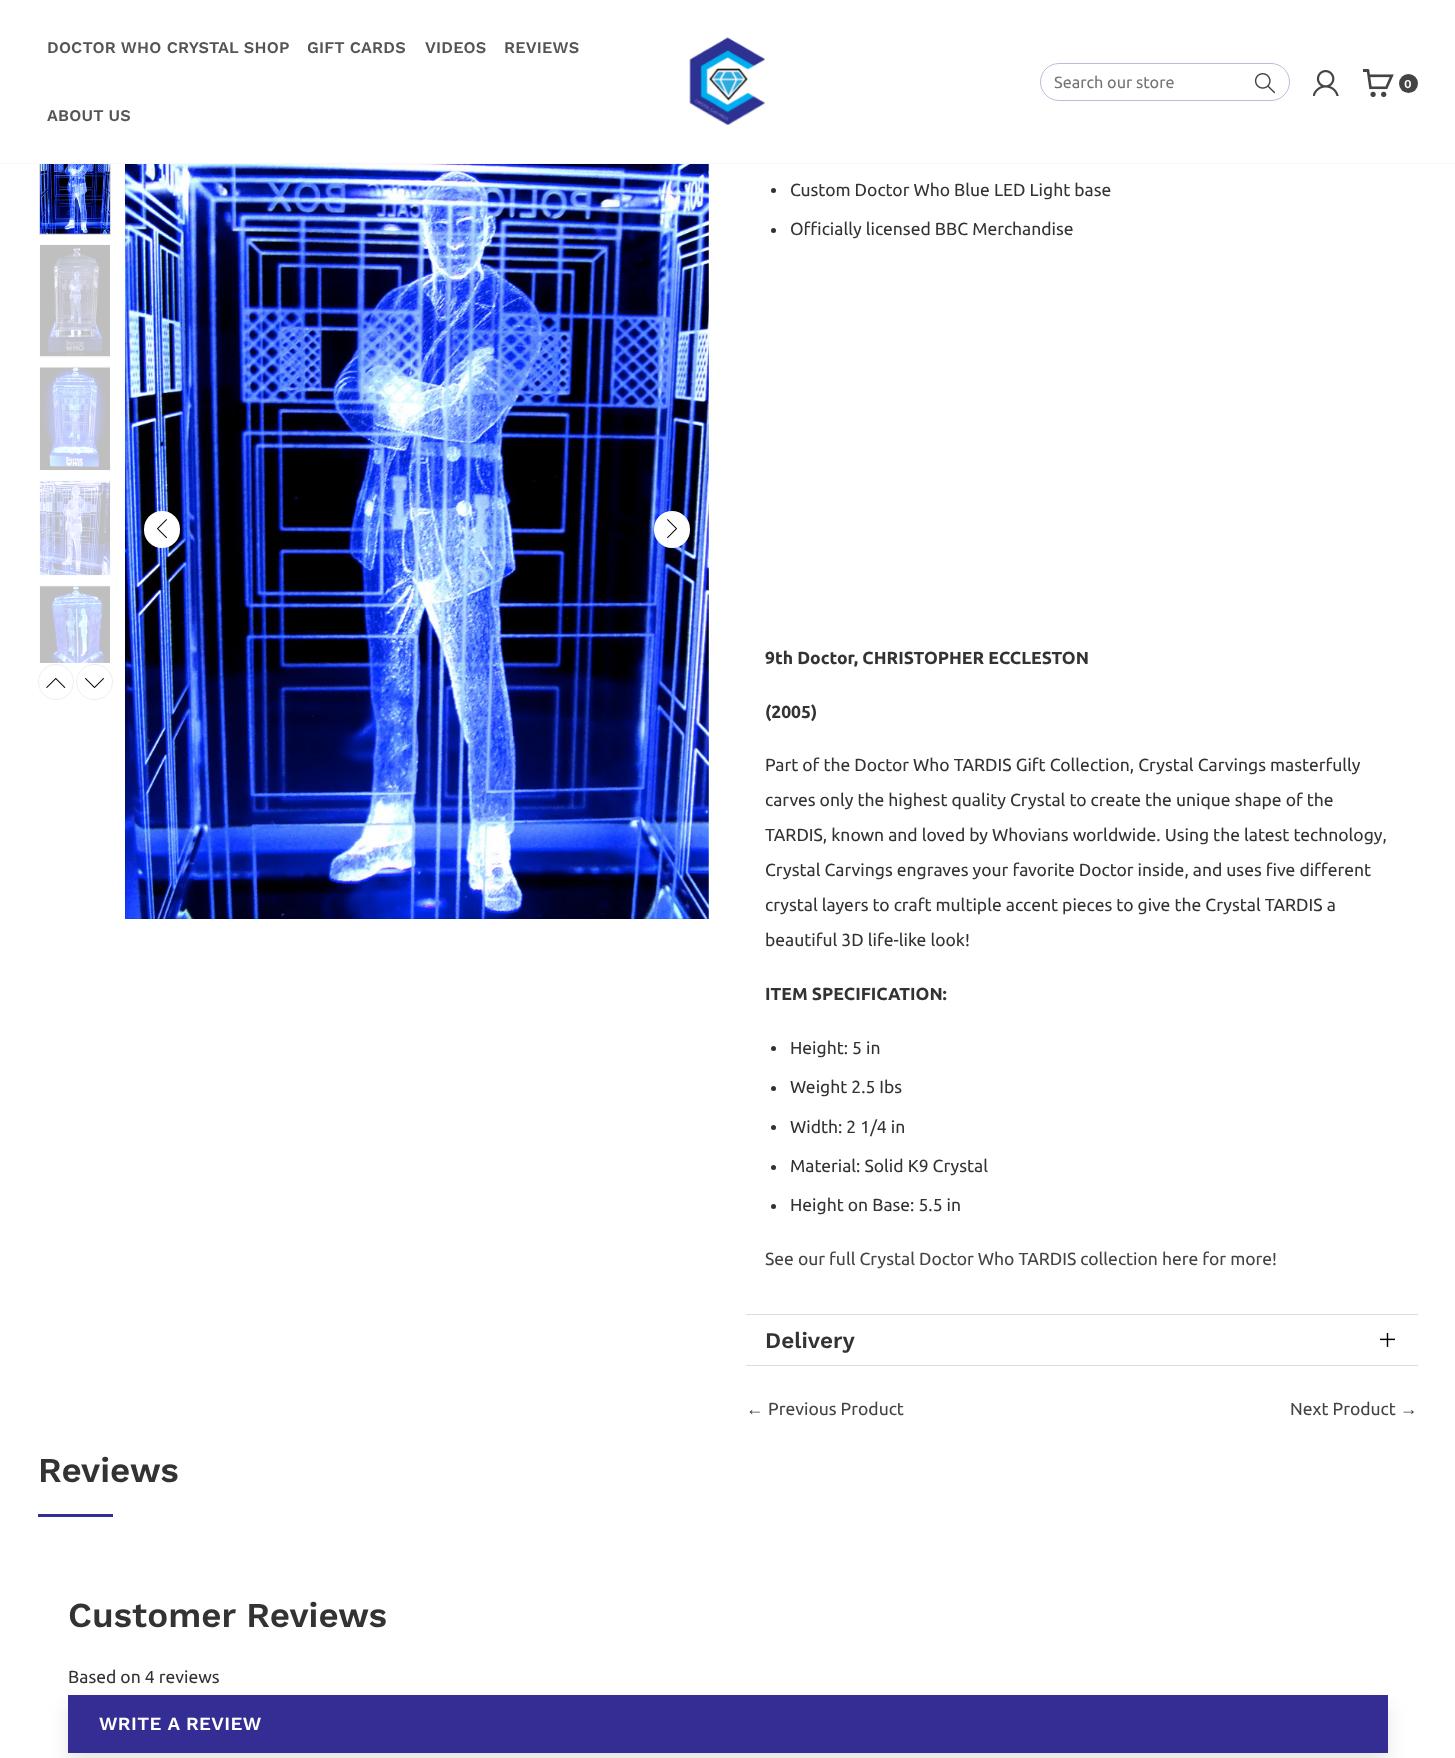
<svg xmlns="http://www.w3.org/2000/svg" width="1455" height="1758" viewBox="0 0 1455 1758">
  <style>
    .t1 { font: 600 16.25px Work Sans; letter-spacing: 0.2px; fill: #555; }
    .t2 { font: 16.25px Ubuntu; fill: #757575; }
    .t3 { font: 600 12px Work Sans; fill: #fff; }
    .t4 { font: 17.5px Ubuntu; fill: #333; }
    .t5 { font: bold 17.5px Ubuntu; fill: #333; }
    .t6 { font: 17.5px Ubuntu; fill: #444; }
    .t7 { font: 600 22.5px Work Sans; fill: #333; }
    .t8 { font: 17.5px Liberation Sans; fill: #444; }
    .t9 { font: 600 35px Work Sans; fill: #333; }
    .t10 { font: 600 18.75px Work Sans; letter-spacing: 0.4px; fill: #fff; }
  </style>
  <defs>
    <clipPath id="clip1"><rect x="38" y="138" width="75" height="525"/></clipPath>
  </defs>
  <rect width="100%" height="100%" fill="#fff"/>
  <rect x="39.5" y="139.5" width="71" height="95" fill="none" stroke="#ddd"/>
  <rect x="39" y="139" width="72" height="24" fill="#fff"/>
  <rect x="0" y="163" width="1455" height="1" fill="#f7f8f9"/>
  <text x="47" y="53" class="t1">DOCTOR WHO CRYSTAL SHOP</text>
  <text x="307" y="53" class="t1">GIFT CARDS</text>
  <text x="425" y="53" class="t1">VIDEOS</text>
  <text x="504" y="53" class="t1">REVIEWS</text>
  <text x="47" y="121" class="t1">ABOUT US</text>
  <image x="689" y="37" width="76" height="88" href="images/1.png"/>
  <rect x="1040.5" y="63.5" width="249" height="37" rx="18.5" fill="none" stroke="#b8bedc"/>
  <text x="1054" y="88" class="t2">Search our store</text>
  <image x="1254" y="73" width="22" height="21" href="images/2.png"/>
  <image x="1313" y="70" width="26" height="26" href="images/3.png"/>
  <image x="1363" y="69" width="31" height="29" href="images/4.png"/>
  <circle cx="1408.5" cy="83.5" r="9.5" fill="#444"/>
  <text x="1404" y="88" class="t3">0</text>
  <image x="40" y="164" width="70" height="70" href="images/5.png"/>
  <rect x="39.5" y="244.5" width="71" height="113" fill="none" stroke="#fcfcfc"/>
  <image x="40" y="245" width="70" height="112" href="images/6.png"/>
  <rect x="39.5" y="366.5" width="71" height="104" fill="none" stroke="#fcfcfc"/>
  <image x="40" y="367" width="70" height="103" href="images/7.png"/>
  <rect x="39.5" y="480.5" width="71" height="95" fill="none" stroke="#fcfcfc"/>
  <image x="40" y="481" width="70" height="94" href="images/8.png"/>
  <g clip-path="url(#clip1)">
    <rect x="39.5" y="585.5" width="71" height="107" fill="none" stroke="#fcfcfc"/>
  </g>
  <image x="40" y="586" width="70" height="77" href="images/9.png"/>
  <image x="46" y="678" width="20" height="10" href="images/10.png"/>
  <circle cx="56" cy="682" r="17.5" fill="none" stroke="#eee"/>
  <image x="85" y="678" width="19" height="10" href="images/11.png"/>
  <rect x="76.5" y="664.5" width="36" height="35" rx="17.5" fill="none" stroke="#eee"/>
  <image x="125" y="164" width="584" height="755" href="images/12.png"/>
  <rect x="144" y="511" width="36" height="37" rx="18" fill="#fff"/>
  <image x="157" y="519" width="10" height="20" href="images/13.png"/>
  <rect x="654" y="511" width="36" height="37" rx="18" fill="#fff"/>
  <image x="667" y="519" width="10" height="20" href="images/14.png"/>
  <rect x="746" y="1314" width="672" height="1" fill="#ddd"/>
  <circle cx="773.5" cy="190.5" r="2.5" fill="#333"/>
  <text x="790" y="196" class="t4">Custom Doctor Who Blue LED Light base</text>
  <circle cx="773.5" cy="230.5" r="2.5" fill="#333"/>
  <text x="790" y="235" class="t4">Officially licensed BBC Merchandise</text>
  <text x="765" y="664" class="t5">9th Doctor, CHRISTOPHER ECCLESTON</text>
  <text x="765" y="718" class="t5">(2005)</text>
  <text x="765" y="771" class="t4">Part of the Doctor Who TARDIS Gift Collection, Crystal Carvings masterfully</text>
  <text x="765" y="806" class="t4">carves only the highest quality Crystal to create the unique shape of the</text>
  <text x="765" y="841" class="t4">TARDIS, known and loved by Whovians worldwide. Using the latest technology,</text>
  <text x="765" y="876" class="t4">Crystal Carvings engraves your favorite Doctor inside, and uses five different</text>
  <text x="765" y="911" class="t4">crystal layers to craft multiple accent pieces to give the Crystal TARDIS a</text>
  <text x="765" y="946" class="t4">beautiful 3D life-like look!</text>
  <text x="765" y="1000" class="t5">ITEM SPECIFICATION:</text>
  <circle cx="773.5" cy="1048.5" r="2.5" fill="#333"/>
  <text x="790" y="1054" class="t4">Height: 5 in</text>
  <circle cx="773.5" cy="1088.5" r="2.5" fill="#333"/>
  <text x="790" y="1093" class="t4">Weight 2.5 Ibs</text>
  <circle cx="773.5" cy="1127.5" r="2.5" fill="#333"/>
  <text x="790" y="1133" class="t4">Width: 2 1/4 in</text>
  <circle cx="773.5" cy="1167.5" r="2.5" fill="#333"/>
  <text x="790" y="1172" class="t4">Material: Solid K9 Crystal</text>
  <circle cx="773.5" cy="1206.5" r="2.5" fill="#333"/>
  <text x="790" y="1211" class="t4">Height on Base: 5.5 in</text>
  <text x="765" y="1265" class="t6">See our full Crystal Doctor Who TARDIS collection here for more!</text>
  <text x="765" y="1348" class="t7">Delivery</text>
  <image x="1380" y="1333" width="15" height="14" href="images/15.png"/>
  <rect x="746" y="1365" width="672" height="1" fill="#ddd"/>
  <text x="746" y="1415" class="t8">←</text>
  <text x="768" y="1415" class="t6">Previous Product</text>
  <text x="1290" y="1415" class="t6">Next Product</text>
  <text x="1400" y="1415" class="t8">→</text>
  <text x="38" y="1482" class="t9">Reviews</text>
  <rect x="38" y="1514" width="75" height="3" fill="#342d93"/>
  <text x="68" y="1627" class="t9">Customer Reviews</text>
  <rect x="68" y="1705" width="1320" height="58" fill="#0000001a" filter="blur(9.5px)"/>
  <text x="68" y="1683" class="t4">Based on 4 reviews</text>
  <rect x="68" y="1695" width="1320" height="58" fill="#342d93"/>
  <text x="99" y="1730" class="t10">WRITE A REVIEW</text>
</svg>
